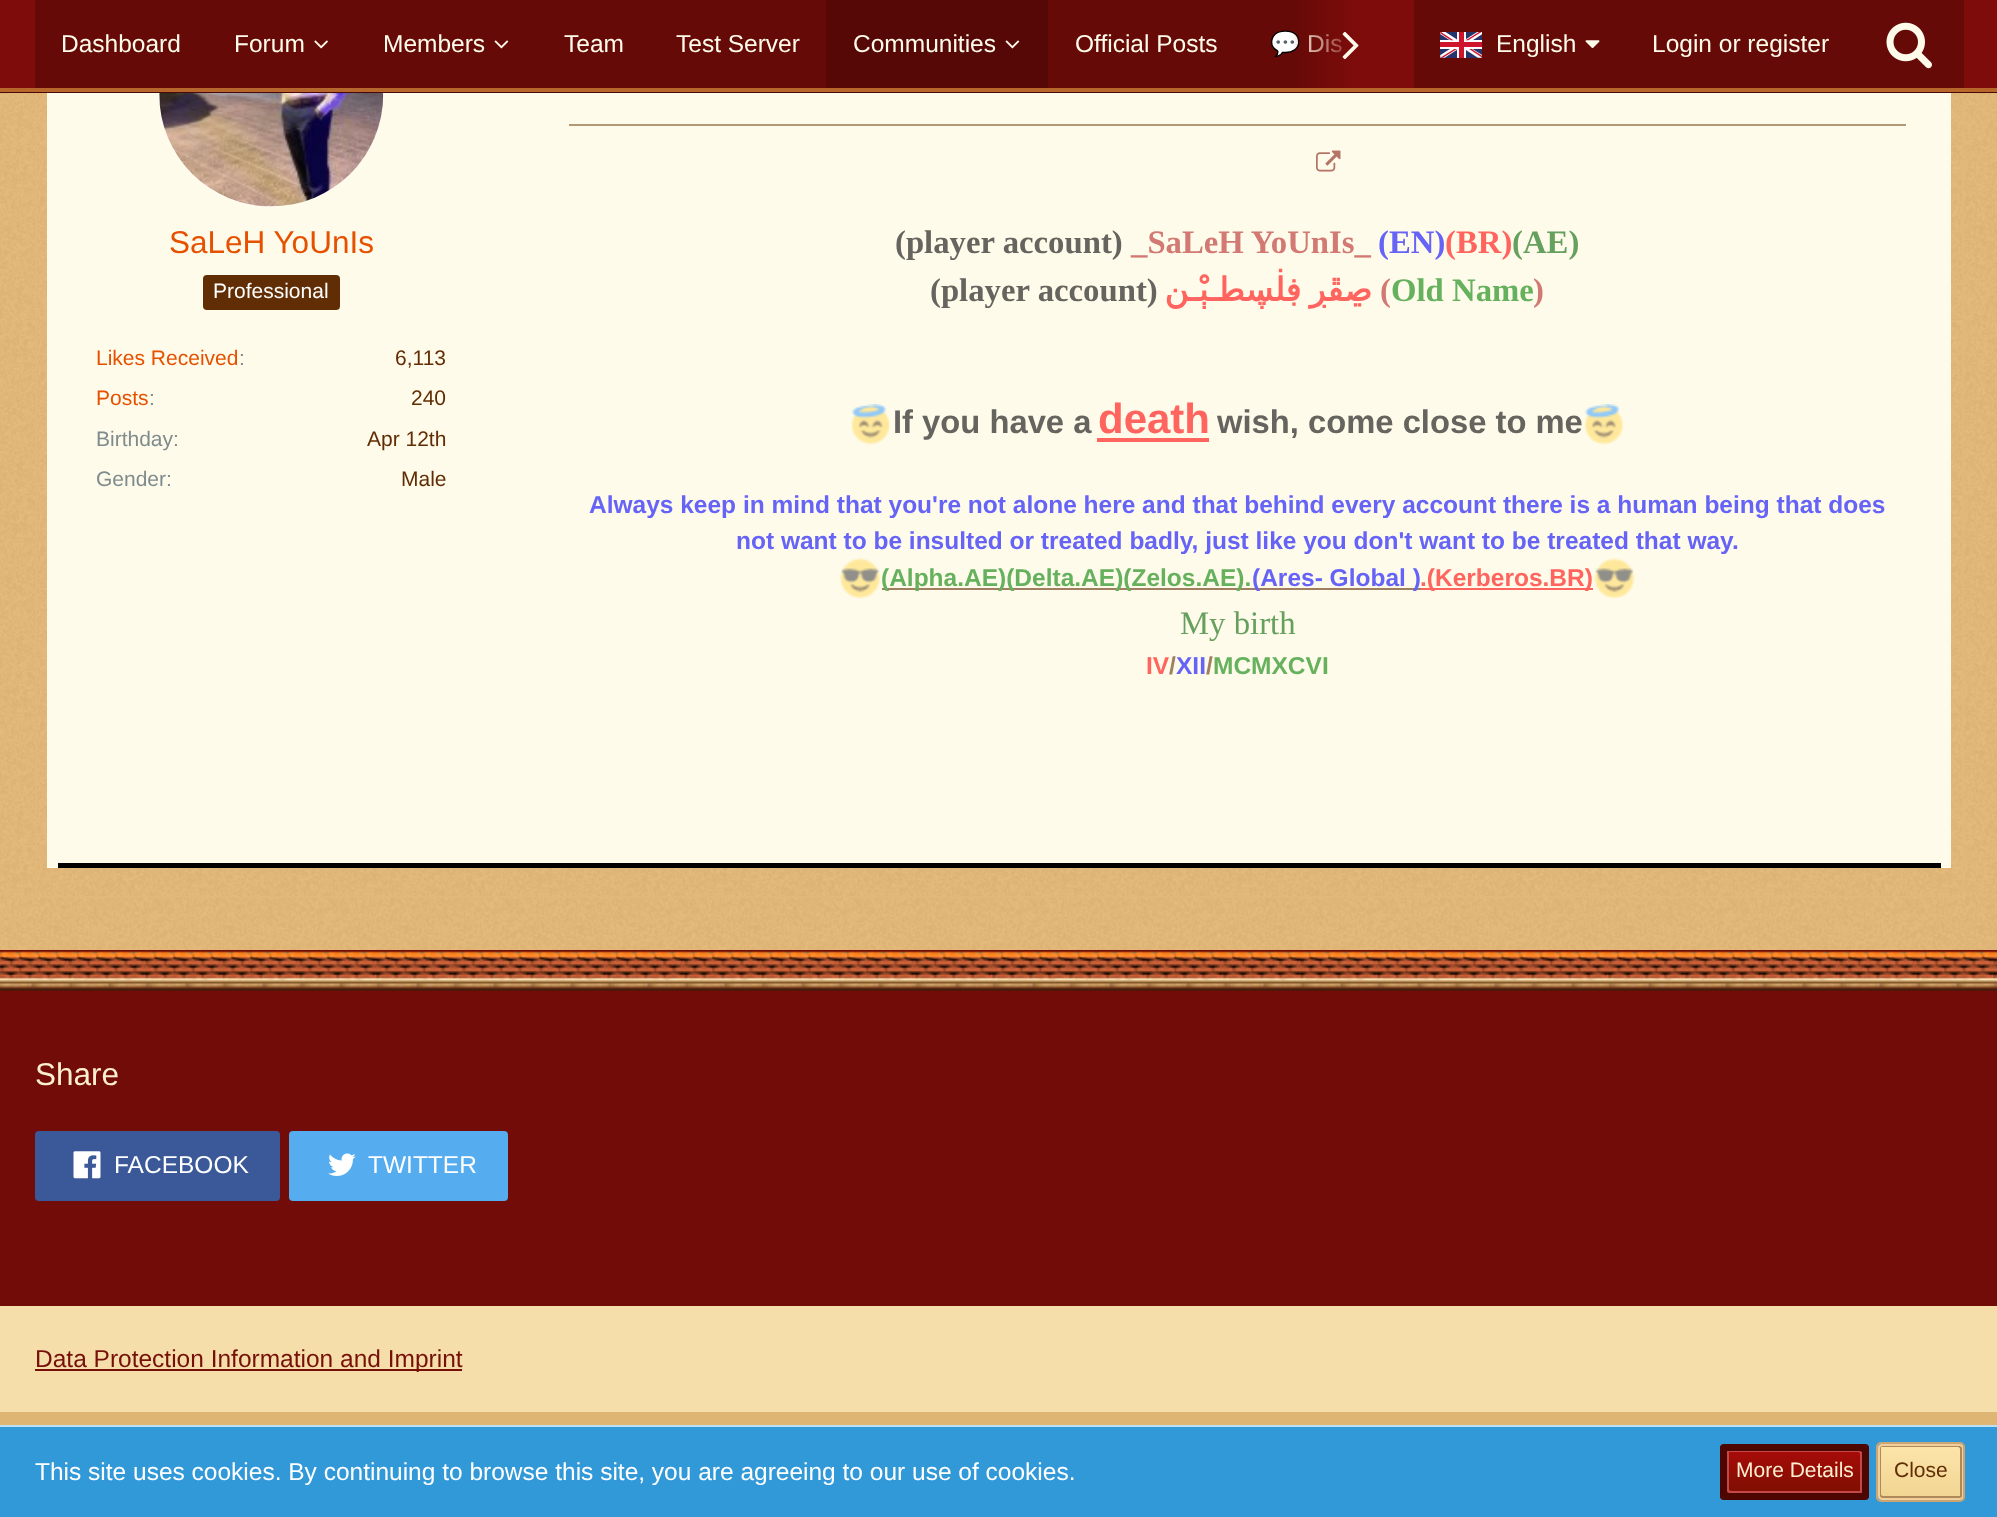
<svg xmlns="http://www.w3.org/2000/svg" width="1997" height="1517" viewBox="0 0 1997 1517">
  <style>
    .t1 { font: 24.5px Noto Color Emoji; fill: #fffbeb; }
    .t2 { font: 24.5px Liberation Sans; fill: #fffbeb; }
    .t3 { font: 31.5px Liberation Sans; fill: #e65100; }
    .t4 { font: 21px Liberation Sans; fill: #fff; }
    .t5 { font: 21px Liberation Sans; fill: #e65100; }
    .t6 { font: 21px Liberation Sans; fill: #7f8c8d; }
    .t7 { font: 21px Liberation Sans; fill: #612d04; }
    .t8 { font: bold 32.75px Liberation Serif; fill: #66645e; }
    .t9 { font: bold 32.75px Liberation Serif; fill: #d17972; }
    .t10 { font: bold 32.75px Liberation Serif; fill: #6664f7; }
    .t11 { font: bold 32.75px Liberation Serif; fill: #ff645e; }
    .t12 { font: bold 32.75px Liberation Serif; fill: #66a05e; }
    .t13 { font: bold 32.75px DejaVu Sans; direction: rtl; fill: #ff645e; }
    .t14 { font: bold 32.75px Liberation Serif; fill: #66b15e; }
    .t15 { font: bold 32.75px Liberation Sans; fill: #66645e; }
    .t16 { font: bold 42px Liberation Sans; fill: #ff645e; }
    .t17 { font: bold 24.5px Liberation Sans; fill: #6664f7; }
    .t18 { font: bold 24.5px Liberation Sans; fill: #66b15e; }
    .t19 { font: bold 24.5px Liberation Sans; fill: #ff645e; }
    .t20 { font: 32.75px Liberation Serif; fill: #66a05e; }
    .t21 { font: bold 24.5px Liberation Sans; fill: #a07f60; }
    .t22 { font: 31.5px Liberation Sans; fill: #fdefd1; }
    .t23 { font: 24.5px Liberation Sans; fill: #fff; }
    .t24 { font: 24.5px Liberation Sans; fill: #761009; }
    .t25 { font: 21px Liberation Sans; fill: #fdefd1; }
  </style>
  <defs>
    <linearGradient id="g1" gradientUnits="userSpaceOnUse" x1="1292" y1="44" x2="1379" y2="44"><stop offset="0" stop-color="#7e0c0b" stop-opacity="0"/><stop offset="0.75" stop-color="#7e0c0b"/></linearGradient>
    <clipPath id="clip1"><rect x="1720" y="1444" width="149" height="56" rx="4"/></clipPath>
    <linearGradient id="g2" gradientUnits="userSpaceOnUse" x1="1795" y1="1498" x2="1795" y2="1446"><stop offset="0" stop-color="#790f00"/><stop offset="1" stop-color="#ac0b0a"/></linearGradient>
    <linearGradient id="g3" gradientUnits="userSpaceOnUse" x1="1919" y1="1500" x2="1922" y2="1443"><stop offset="0" stop-color="#f0d491"/><stop offset="1" stop-color="#fde5ab"/></linearGradient>
  </defs>
  <rect width="100%" height="100%" fill="#fff"/>
  <image x="0" y="93" width="1997" height="857" href="images/8.png"/>
  <rect x="36" y="-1" width="1927" height="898" fill="none" stroke="#e0b979" stroke-width="2"/>
  <rect x="47" y="93" width="1904" height="775" fill="#fffbeb"/>
  <circle cx="271" cy="95" r="112" fill="#fff"/>
  <path d="M0 91V93H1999V2H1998V91Z" fill="#490909"/>
  <rect x="0" y="0" width="1997" height="88" fill="#7e0c0b"/>
  <rect x="0" y="88" width="1997" height="4" fill="#b8672c"/>
  <rect x="1048" y="0" width="309" height="88" fill="#650a07"/>
  <text x="1270" y="52" class="t1">💬</text>
  <text x="1307" y="52" class="t2">Dis</text>
  <rect x="1293" y="0" width="64" height="88" fill="url(#g1)"/>
  <image x="1342" y="31" width="17" height="29" href="images/1.png"/>
  <rect x="35" y="0" width="791" height="88" fill="#650a07"/>
  <text x="61" y="52" class="t2">Dashboard</text>
  <text x="234" y="52" class="t2">Forum</text>
  <image x="314" y="40" width="14" height="9" href="images/2.png"/>
  <text x="383" y="52" class="t2">Members</text>
  <image x="494" y="40" width="15" height="9" href="images/3.png"/>
  <text x="564" y="52" class="t2">Team</text>
  <text x="676" y="52" class="t2">Test Server</text>
  <rect x="826" y="0" width="222" height="88" fill="#550805"/>
  <text x="853" y="52" class="t2">Communities</text>
  <image x="1005" y="40" width="15" height="9" href="images/4.png"/>
  <text x="1075" y="52" class="t2">Official Posts</text>
  <rect x="1414" y="0" width="550" height="88" fill="#650a07"/>
  <image x="1440" y="32" width="42" height="26" href="images/5.png"/>
  <text x="1496" y="52" class="t2">English</text>
  <image x="1585" y="40" width="15" height="9" href="images/6.png"/>
  <text x="1652" y="52" class="t2">Login or register</text>
  <image x="1886" y="22" width="46" height="47" href="images/7.png"/>
  <rect x="58" y="863" width="1883" height="5" fill="#000"/>
  <image x="159" y="93" width="225" height="114" href="images/9.png"/>
  <text x="169" y="253" class="t3">SaLeH YoUnIs</text>
  <rect x="203" y="275" width="137" height="35" rx="4" fill="#612d04"/>
  <text x="213" y="298" class="t4">Professional</text>
  <text x="96" y="365" class="t5">Likes Received</text>
  <text x="239" y="365" class="t6">:</text>
  <text x="395" y="365" class="t7">6,113</text>
  <text x="96" y="405" class="t5">Posts</text>
  <text x="149" y="405" class="t6">:</text>
  <text x="411" y="405" class="t7">240</text>
  <text x="96" y="446" class="t6">Birthday:</text>
  <text x="367" y="446" class="t7">Apr 12th</text>
  <text x="96" y="486" class="t6">Gender:</text>
  <text x="401" y="486" class="t7">Male</text>
  <rect x="569" y="124" width="1337" height="2" fill="#b39875"/>
  <image x="1316" y="150" width="25" height="22" href="images/10.png"/>
  <text x="895" y="253" class="t8">(player account)</text>
  <text x="1131" y="253" class="t9">_SaLeH YoUnIs_</text>
  <text x="1378" y="253" class="t10">(EN)</text>
  <text x="1445" y="253" class="t11">(BR)</text>
  <text x="1512" y="253" class="t12">(AE)</text>
  <text x="930" y="301" class="t8">(player account)</text>
  <text x="1372" y="301" word-spacing="-2" class="t13">ڝڦڔ ڣڶڛطـﯧْـن</text>
  <text x="1380" y="301" class="t9">(</text>
  <text x="1391" y="301" class="t14">Old Name</text>
  <text x="1533" y="301" class="t9">)</text>
  <image x="851" y="404" width="39" height="41" href="images/11.png"/>
  <text x="893" y="433" class="t15">If you have a</text>
  <text x="1098" y="433" class="t16">death</text>
  <rect x="1097" y="438" width="112" height="4" fill="#ff645e"/>
  <text x="1217" y="433" class="t15">wish, come close to me</text>
  <image x="1584" y="404" width="40" height="41" href="images/12.png"/>
  <text x="589" y="513" class="t17">Always keep in mind that you're not alone here and that behind every account there is a human being that does</text>
  <text x="736" y="549" class="t17">not want to be insulted or treated badly, just like you don't want to be treated that way.</text>
  <image x="839" y="558" width="42" height="41" href="images/13.png"/>
  <rect x="882" y="588" width="539" height="2" fill="#a07f60"/>
  <text x="881" y="586" class="t18">(Alpha.AE)(Delta.AE)(Zelos.AE).</text>
  <text x="1252" y="586" class="t17">(Ares- Global )</text>
  <rect x="1421" y="588" width="172" height="2" fill="#ff645e"/>
  <text x="1420" y="586" class="t19">.(Kerberos.BR)</text>
  <image x="1594" y="558" width="41" height="41" href="images/14.png"/>
  <text x="1180" y="634" class="t20">My birth</text>
  <text x="1146" y="674" class="t19">IV</text>
  <text x="1169" y="674" class="t21">/</text>
  <text x="1176" y="674" class="t17">XII</text>
  <text x="1206" y="674" class="t21">/</text>
  <text x="1213" y="674" class="t18">MCMXCVI</text>
  <rect x="0" y="950" width="1997" height="356" fill="#720c08"/>
  <image x="0" y="951" width="1997" height="40" href="images/15.png"/>
  <text x="35" y="1085" class="t22">Share</text>
  <rect x="35" y="1131" width="245" height="70" rx="4" fill="#3b5999"/>
  <image x="73" y="1151" width="28" height="28" href="images/16.png"/>
  <text x="114" y="1173" class="t23">FACEBOOK</text>
  <rect x="289" y="1131" width="219" height="70" rx="4" fill="#55acee"/>
  <image x="328" y="1153" width="28" height="23" href="images/17.png"/>
  <text x="368" y="1173" class="t23">TWITTER</text>
  <rect x="0" y="1306" width="1997" height="106" fill="#f6deab"/>
  <rect x="35" y="1369" width="427" height="2" fill="#761009"/>
  <text x="35" y="1367" class="t24">Data Protection Information and Imprint</text>
  <rect x="0" y="1412" width="1997" height="13" fill="#dfb574"/>
  <rect x="0" y="1427" width="1997" height="90" fill="#3299d9"/>
  <rect x="0" y="1425" width="1997" height="2" fill="#bcdff1"/>
  <text x="35" y="1480" class="t23">This site uses cookies. By continuing to browse this site, you are agreeing to our use of cookies.</text>
  <g clip-path="url(#clip1)">
    <rect x="1720" y="1446" width="149" height="52" fill="url(#g2)"/>
  </g>
  <path d="M1724 1446C1721 1446 1722 1450 1722 1452H1858C1859 1452 1860 1453 1860 1454V1498H1865C1866 1498 1867 1497 1867 1496V1448C1867 1447 1866 1446 1865 1446Z" fill="#c34848"/>
  <path d="M1724 1446C1723 1446 1722 1447 1722 1448V1496C1722 1497 1723 1498 1724 1498H1865C1866 1498 1867 1497 1867 1496V1491H1731C1730 1491 1729 1490 1729 1489V1446Z" fill="#c34848"/>
  <path d="M1724 1446C1721 1446 1722 1449 1722 1451H1860L1862 1452V1498H1865C1866 1498 1867 1497 1867 1496V1448C1867 1447 1866 1446 1865 1446Z" fill="#4d0602"/>
  <path d="M1724 1446C1723 1446 1722 1447 1722 1448V1496C1722 1497 1723 1498 1724 1498H1865C1866 1498 1867 1497 1867 1496V1493H1729C1728 1493 1727 1492 1727 1491V1446Z" fill="#4d0602"/>
  <rect x="1721" y="1445" width="147" height="54" rx="3" fill="none" stroke="#4d0602" stroke-width="2"/>
  <text x="1736" y="1477" class="t25">More Details</text>
  <rect x="1880" y="1446" width="82" height="52" fill="url(#g3)"/>
  <path d="M1882 1446L1880 1447H1958C1959 1447 1960 1448 1960 1449V1498C1961 1498 1962 1497 1962 1496V1448C1962 1447 1961 1446 1960 1446Z" fill="#af8958"/>
  <path d="M1881 1446C1880 1447 1880 1447 1880 1448V1496C1880 1497 1881 1498 1882 1498H1960C1961 1498 1962 1497 1962 1496H1883C1882 1496 1881 1495 1881 1494Z" fill="#af8958"/>
  <rect x="1879" y="1445" width="84" height="54" rx="3" fill="none" stroke="#f0cf9d" stroke-width="2"/>
  <rect x="1877" y="1443" width="87" height="58" rx="4" fill="none" stroke="#cba673" stroke-width="2"/>
  <text x="1894" y="1477" class="t7">Close</text>
</svg>
